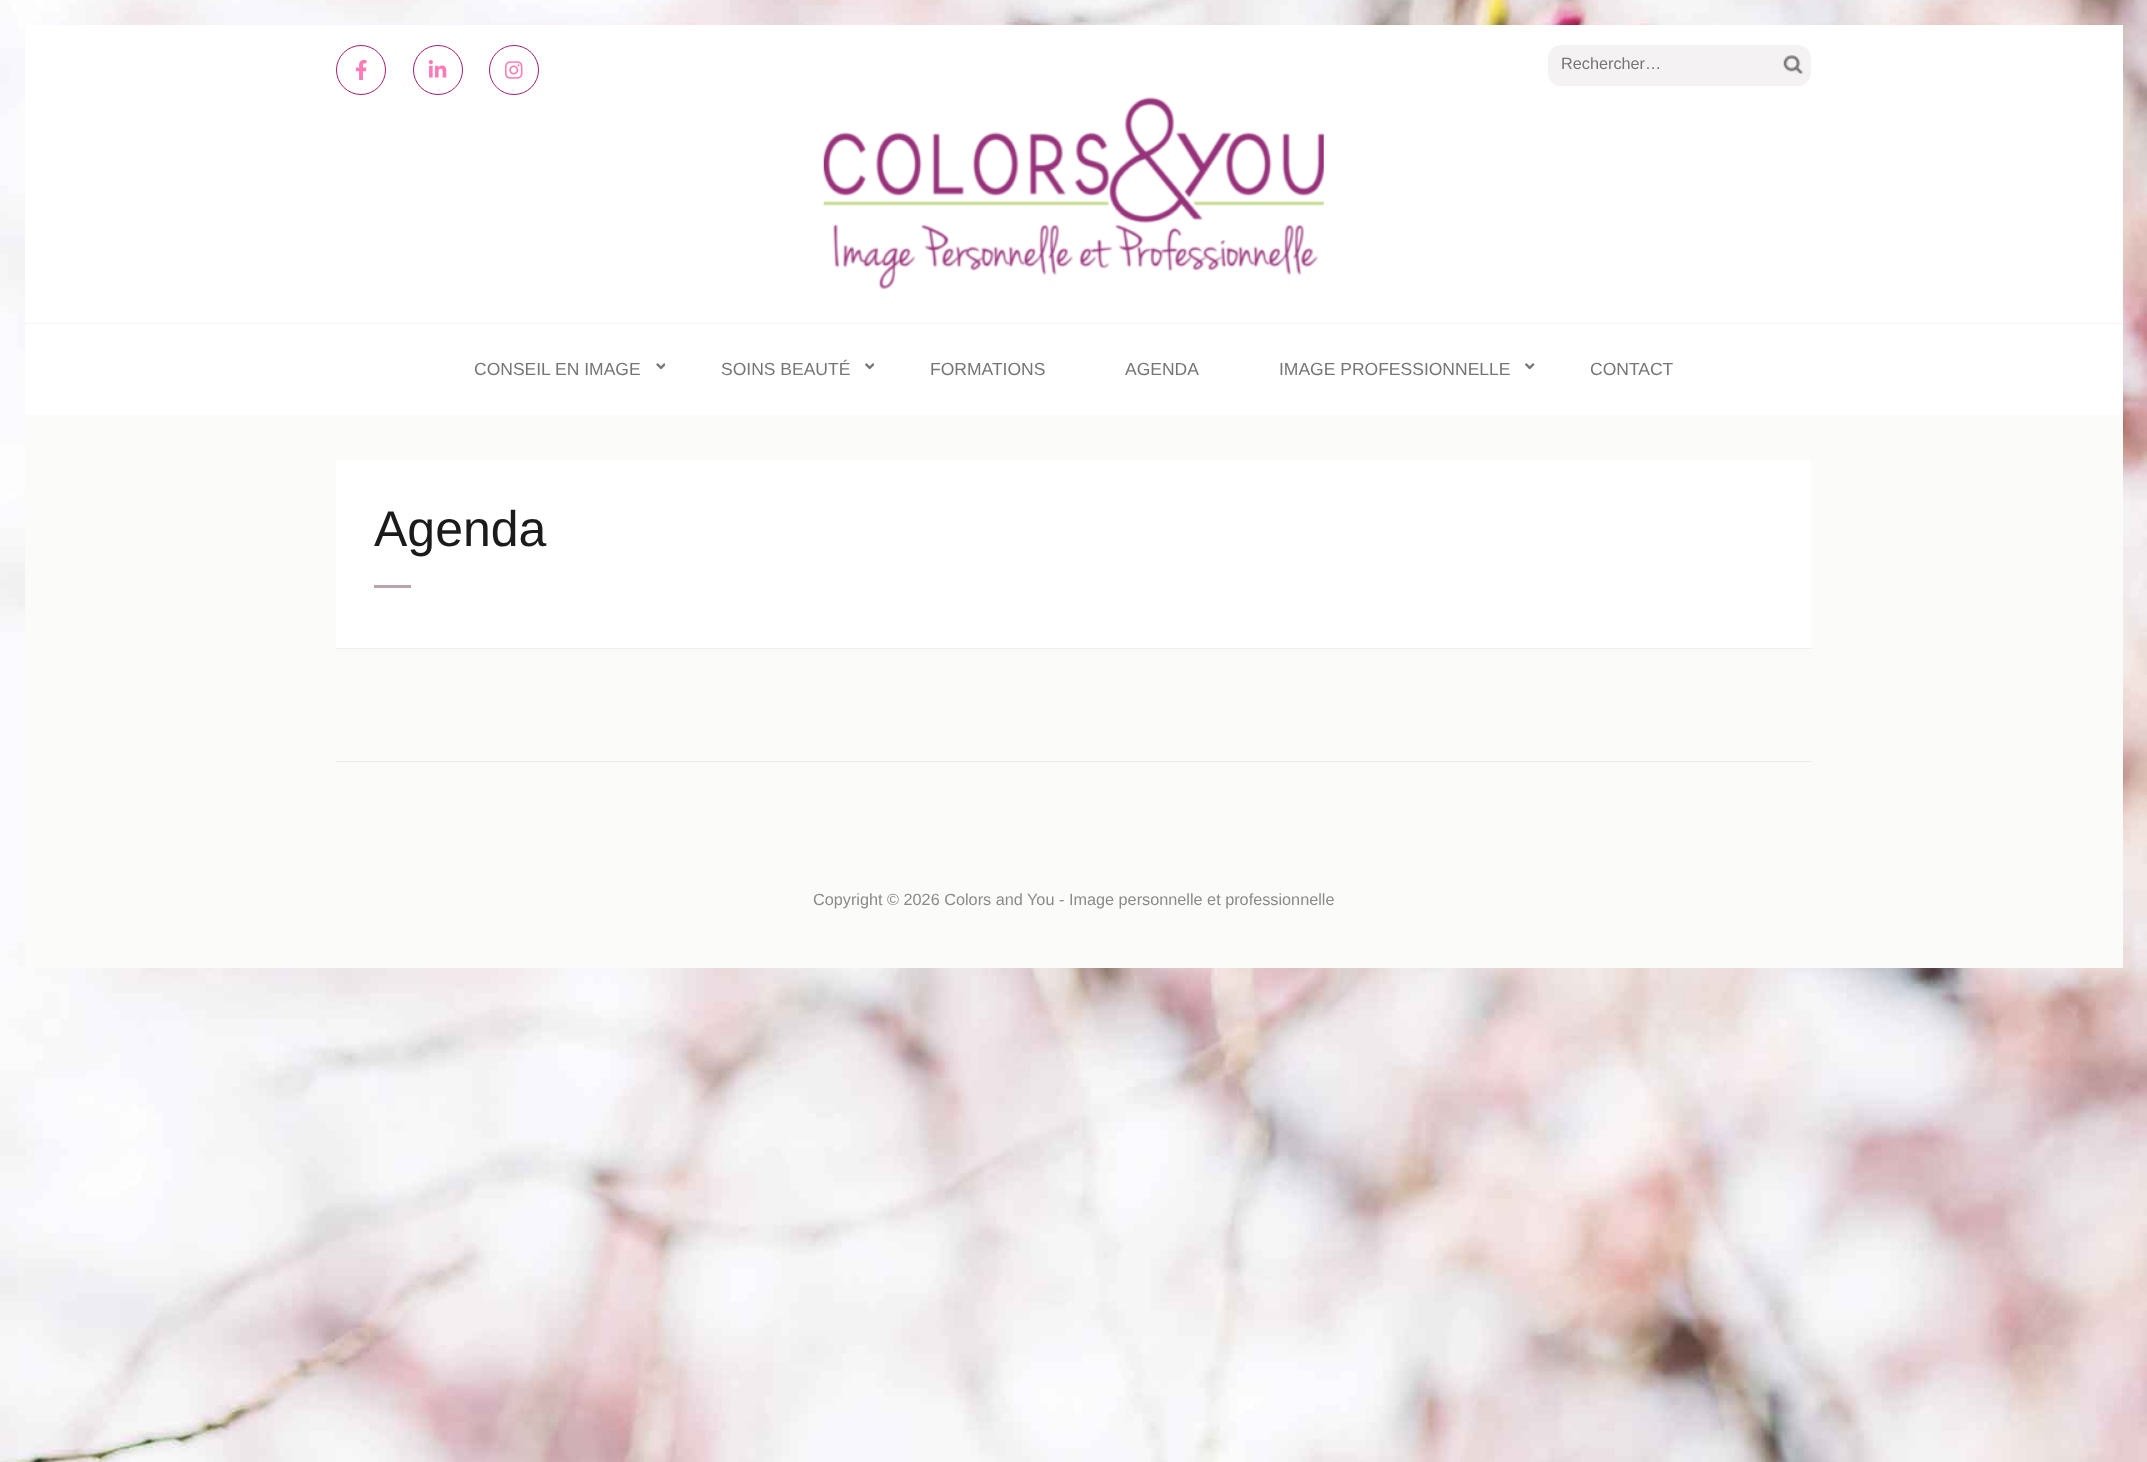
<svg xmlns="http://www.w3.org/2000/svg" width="2147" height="1462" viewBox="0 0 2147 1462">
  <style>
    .t1 { font: 16.25px Liberation Sans; fill: #757575; }
    .t2 { font: 17.5px Liberation Sans; fill: #757575; }
    .t3 { font: 50px Liberation Sans; fill: #1b1b1b; }
    .t4 { font: 16.25px Liberation Sans; fill: #8a8a8a; }
  </style>
  <rect width="100%" height="100%" fill="#fff"/>
  <image x="0" y="0" width="2147" height="1462" href="images/1.png"/>
  <rect x="25" y="415" width="2098" height="553" fill="#fbfbfa"/>
  <rect x="25" y="25" width="2098" height="298" fill="#fff"/>
  <circle cx="361" cy="70" r="24.5" fill="none" stroke="#a51a73"/>
  <image x="355" y="60" width="12" height="20" href="images/2.png"/>
  <circle cx="438" cy="70" r="24.5" fill="none" stroke="#a51a73"/>
  <image x="428" y="60" width="19" height="18" href="images/3.png"/>
  <circle cx="514" cy="70" r="24.5" fill="none" stroke="#a51a73"/>
  <image x="505" y="61" width="18" height="18" href="images/4.png"/>
  <rect x="1548" y="45" width="263" height="41" rx="13" fill="#f4f2f3"/>
  <text x="1561" y="69" class="t1">Rechercher…</text>
  <image x="1783" y="55" width="20" height="19" href="images/5.png"/>
  <image x="823" y="97" width="501" height="193" href="images/6.png"/>
  <rect x="25" y="324" width="2098" height="91" fill="#fff"/>
  <rect x="25" y="323" width="2098" height="1" fill="#f4f2f3"/>
  <text x="474" y="375" class="t2">CONSEIL EN IMAGE</text>
  <image x="656" y="363" width="9" height="7" href="images/7.png"/>
  <text x="721" y="375" class="t2">SOINS BEAUTÉ</text>
  <image x="865" y="363" width="9" height="7" href="images/8.png"/>
  <text x="930" y="375" class="t2">FORMATIONS</text>
  <text x="1125" y="375" class="t2">AGENDA</text>
  <text x="1279" y="375" class="t2">IMAGE PROFESSIONNELLE</text>
  <image x="1525" y="363" width="10" height="7" href="images/9.png"/>
  <text x="1590" y="375" class="t2">CONTACT</text>
  <rect x="336" y="761" width="1475" height="1" fill="#ededed"/>
  <rect x="336" y="460" width="1475" height="188" fill="#fff"/>
  <rect x="336" y="648" width="1475" height="1" fill="#efedee"/>
  <text x="374" y="546" class="t3">Agenda</text>
  <rect x="374" y="585" width="37" height="3" fill="#b7a4b0"/>
  <text x="813" y="905" class="t4">Copyright © 2026 Colors and You - Image personnelle et professionnelle</text>
</svg>
